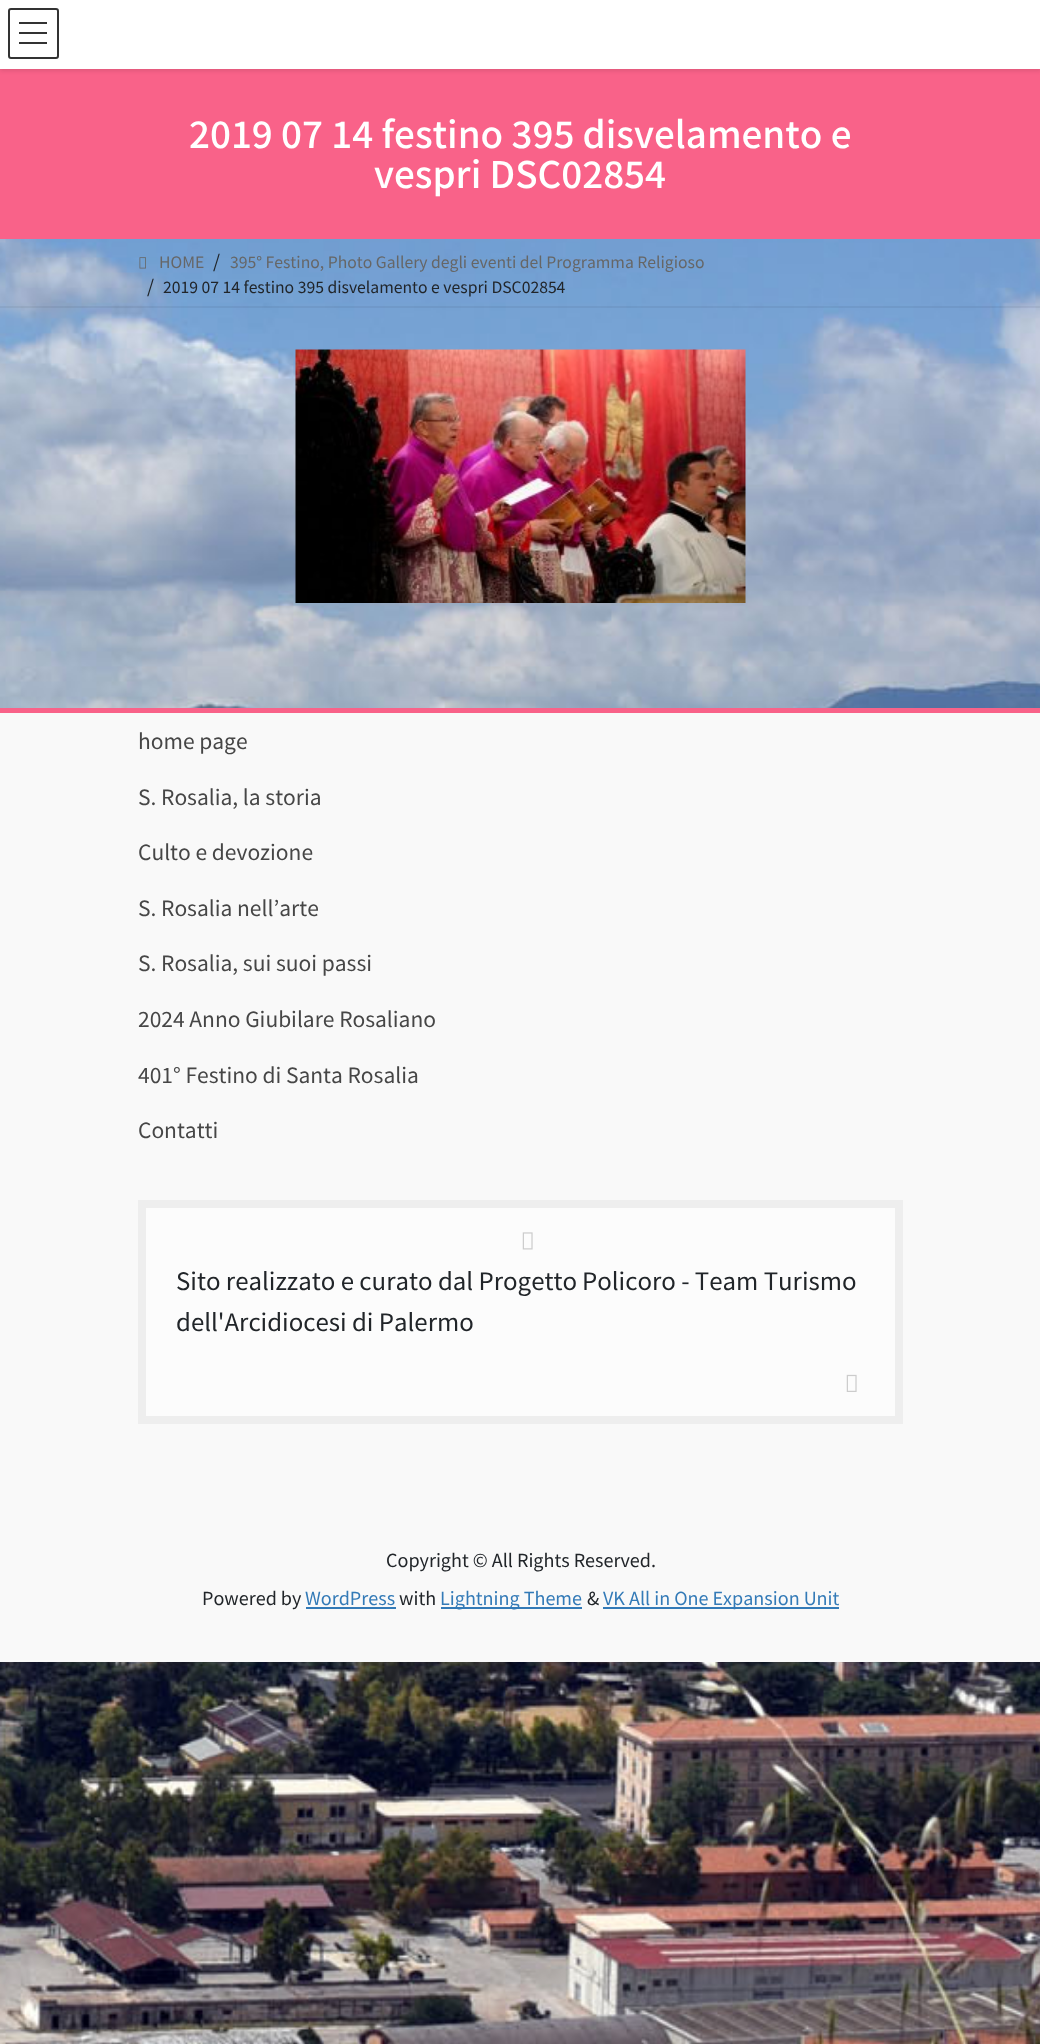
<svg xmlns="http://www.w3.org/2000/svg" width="1040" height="2044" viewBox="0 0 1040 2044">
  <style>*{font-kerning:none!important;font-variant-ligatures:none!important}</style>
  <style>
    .t1 { font: 500 36.75px Noto Sans JP; fill: #fff; }
    .t2 { font: 15.75px Noto Sans JP; fill: #666; }
    .t3 { font: 18px Noto Sans JP; fill: #212529; }
    .t4 { font: 15.75px Noto Sans JP; fill: #212529; }
    .t5 { font: 21px Noto Sans JP; fill: #464646; }
    .t6 { font: 24px Noto Sans JP; fill: #212529; }
    .t7 { font: 18px Noto Sans JP; fill: #337ab7; }
  </style>
  <rect width="100%" height="100%" fill="#fff"/>
  <image x="0" y="239" width="1040" height="1805" href="images/1.png"/>
  <rect x="0" y="69" width="1040" height="170" fill="#f96289"/>
  <rect x="0" y="2" width="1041" height="69" fill="#0000001a" filter="blur(2px)"/>
  <rect x="0" y="0" width="1040" height="69" fill="#fff"/>
  <rect x="19" y="22" width="28" height="2" fill="#333"/>
  <rect x="19" y="32" width="28" height="2" fill="#333"/>
  <rect x="19" y="42" width="28" height="2" fill="#333"/>
  <rect x="9" y="9" width="49" height="49" rx="2" fill="none" stroke="#333" stroke-width="2"/>
  <text x="189" y="148" class="t1">2019 07 14 festino 395 disvelamento e</text>
  <text x="374" y="188" class="t1">vespri DSC02854</text>
  <rect x="0" y="306" width="1040" height="2" fill="#0000000d"/>
  <image x="139" y="257" width="7" height="12" href="images/2.png"/>
  <text x="159" y="268" class="t2">HOME</text>
  <text x="213" y="268" class="t3">/</text>
  <text x="230" y="268" class="t2">395° Festino, Photo Gallery degli eventi del Programma Religioso</text>
  <text x="147" y="293" class="t3">/</text>
  <text x="163" y="293" class="t4">2019 07 14 festino 395 disvelamento e vespri DSC02854</text>
  <image x="295" y="349" width="451" height="254" href="images/3.png"/>
  <rect x="0" y="713" width="1040" height="949" fill="#f9f9f9"/>
  <rect x="0" y="708" width="1040" height="5" fill="#f96289"/>
  <text x="138" y="749" class="t5">home page</text>
  <text x="138" y="805" class="t5">S. Rosalia, la storia</text>
  <text x="138" y="860" class="t5">Culto e devozione</text>
  <text x="138" y="916" class="t5">S. Rosalia nell’arte</text>
  <text x="138" y="971" class="t5">S. Rosalia, sui suoi passi</text>
  <text x="138" y="1027" class="t5">2024 Anno Giubilare Rosaliano</text>
  <text x="138" y="1083" class="t5">401° Festino di Santa Rosalia</text>
  <text x="138" y="1138" class="t5">Contatti</text>
  <rect x="142" y="1204" width="757" height="216" fill="#fcfcfc" stroke="#eee" stroke-width="8"/>
  <image x="522" y="1232" width="11" height="18" href="images/4.png"/>
  <text x="176" y="1290" class="t6">Sito realizzato e curato dal Progetto</text>
  <text x="582" y="1290" class="t6">Policoro - Team Turismo</text>
  <text x="176" y="1331" class="t6">dell'Arcidiocesi di Palermo</text>
  <image x="846" y="1374" width="11" height="18" href="images/5.png"/>
  <text x="386" y="1567" class="t3">Copyright © All Rights Reserved.</text>
  <text x="202" y="1605" class="t3">Powered by</text>
  <text x="305" y="1605" class="t7">WordPress</text>
  <rect x="306" y="1607" width="90" height="2" fill="#337ab7"/>
  <text x="399" y="1605" class="t3">with</text>
  <rect x="441" y="1607" width="141" height="2" fill="#337ab7"/>
  <text x="440" y="1605" class="t7">Lightning Theme</text>
  <text x="587" y="1605" class="t3">&amp;</text>
  <rect x="603" y="1607" width="236" height="2" fill="#337ab7"/>
  <text x="603" y="1605" class="t7">VK All in One Expansion Unit</text>
</svg>
